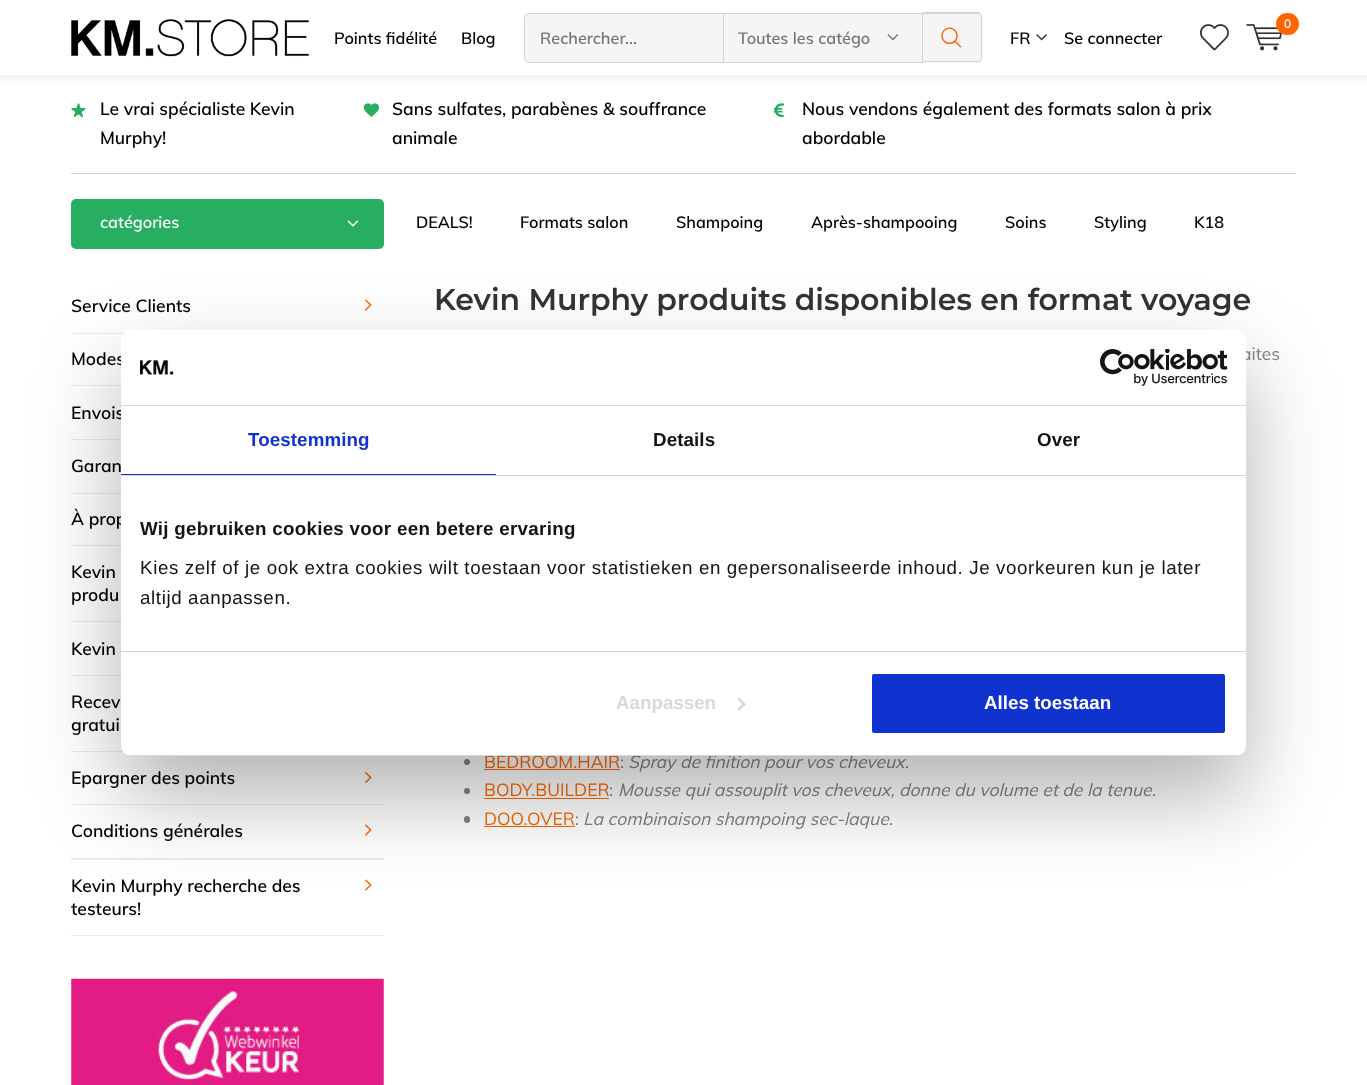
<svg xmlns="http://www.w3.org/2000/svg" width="1367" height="1085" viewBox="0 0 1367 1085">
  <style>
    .t1 { font: 600 16.25px Muli; fill: #000; }
    .t2 { font: 600 16.25px Muli; fill: #757575; }
    .t3 { font: 600 12px Muli; fill: #fff; }
    .t4 { font: 600 17.5px Muli; fill: #000; }
    .t5 { font: 600 16.25px Muli; fill: #fff; }
    .t6 { font: 600 30px Montserrat; fill: #333; }
    .t7 { font: 17.5px Muli; fill: #828282; }
    .t8 { font: 17.5px Muli; fill: #ff6602; }
    .t9 { font: italic 17.5px Muli; fill: #828282; }
    .t10 { font: bold 18.75px Liberation Sans; letter-spacing: 0.1px; fill: #1032cf; }
    .t11 { font: bold 18.75px Liberation Sans; letter-spacing: 0.1px; fill: #141414; }
    .t12 { font: bold 18.75px Liberation Sans; letter-spacing: 0.3px; fill: #141414; }
    .t13 { font: 18.75px Liberation Sans; letter-spacing: 0.62px; fill: #141414; }
    .t14 { font: bold 18.75px Liberation Sans; fill: #d8d8d8; }
    .t15 { font: bold 18.75px Liberation Sans; fill: #fff; }
  </style>
  <defs>
    <clipPath id="clip1"><rect x="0" y="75" width="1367" height="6"/></clipPath>
    <clipPath id="clip2"><rect x="121" y="330" width="1125" height="426" rx="10"/></clipPath>
  </defs>
  <rect width="100%" height="100%" fill="#fff"/>
  <g clip-path="url(#clip1)">
    <rect x="-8" y="5" width="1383" height="75" fill="#0000000d" filter="blur(2.5px)"/>
  </g>
  <image x="71" y="19" width="238" height="38" href="images/1.png"/>
  <text x="334" y="44" class="t1">Points fidélité</text>
  <text x="461" y="44" class="t1">Blog</text>
  <path d="M923 13H978C981 13 983 15 983 18V58C983 61 981 63 978 63H923Z" fill="#f5f5f5"/>
  <path d="M922 12H978C980 12 982 15 982 18V58C982 60 980 62 978 62H922ZM922 14H978C980 14 981 15 981 18V58C981 60 980 61 978 61H922Z" fill="#d4d4d4" fill-rule="evenodd"/>
  <rect x="723.5" y="13.5" width="199" height="49" fill="#f5f5f5" stroke="#d4d4d4"/>
  <path d="M529 13.5H723.5V62.5H529C526.5 62.5 524.5 60.5 524.5 58V18C524.5 15.5 526.5 13.5 529 13.5Z" fill="#f5f5f5" stroke="#d4d4d4"/>
  <text x="540" y="44" class="t2">Rechercher...</text>
  <text x="738" y="44" class="t2">Toutes les catégo</text>
  <image x="887" y="34" width="12" height="7" href="images/2.png"/>
  <image x="941" y="27" width="21" height="21" href="images/3.png"/>
  <text x="1010" y="44" class="t1">FR</text>
  <image x="1036" y="34" width="11" height="7" href="images/4.png"/>
  <text x="1064" y="44" class="t1">Se connecter</text>
  <image x="1200" y="24" width="29" height="27" href="images/5.png"/>
  <image x="1246" y="24" width="37" height="27" href="images/6.png"/>
  <rect x="1276" y="13" width="23" height="22" rx="11" fill="#ff6602"/>
  <text x="1284" y="28" class="t3">0</text>
  <rect x="71" y="173" width="1225" height="1" fill="#d4d4d4"/>
  <image x="71" y="103" width="15" height="15" href="images/7.png"/>
  <text x="100" y="115" class="t4">Le vrai spécialiste Kevin</text>
  <text x="100" y="144" class="t4">Murphy!</text>
  <image x="363" y="103" width="16" height="14" href="images/8.png"/>
  <text x="392" y="115" class="t4">Sans sulfates, parabènes &amp; souffrance</text>
  <text x="392" y="144" class="t4">animale</text>
  <image x="773" y="103" width="11" height="15" href="images/9.png"/>
  <text x="802" y="115" class="t4">Nous vendons également des formats salon à prix</text>
  <text x="802" y="144" class="t4">abordable</text>
  <rect x="71" y="199" width="313" height="50" rx="5" fill="#27ae60"/>
  <text x="100" y="228" class="t5">catégories</text>
  <image x="347" y="220" width="12" height="7" href="images/10.png"/>
  <text x="416" y="228" class="t1">DEALS!</text>
  <text x="520" y="228" class="t1">Formats salon</text>
  <text x="676" y="228" class="t1">Shampoing</text>
  <text x="811" y="228" class="t1">Après-shampooing</text>
  <text x="1005" y="228" class="t1">Soins</text>
  <text x="1094" y="228" class="t1">Styling</text>
  <text x="1194" y="228" class="t1">K18</text>
  <rect x="71" y="333" width="53" height="1" fill="#ebebeb"/>
  <text x="71" y="312" class="t4">Service Clients</text>
  <image x="365" y="299" width="7" height="12" href="images/11.png"/>
  <rect x="71" y="385" width="50" height="1" fill="#ebebeb"/>
  <text x="71" y="365" class="t4">Modes</text>
  <rect x="71" y="439" width="50" height="1" fill="#ebebeb"/>
  <text x="71" y="419" class="t4">Envois</text>
  <rect x="71" y="493" width="50" height="1" fill="#ebebeb"/>
  <text x="71" y="472" class="t4">Garan</text>
  <rect x="71" y="545" width="50" height="1" fill="#ebebeb"/>
  <text x="71" y="525" class="t4">À prop</text>
  <rect x="71" y="621" width="50" height="1" fill="#ebebeb"/>
  <text x="71" y="578" class="t4">Kevin</text>
  <text x="71" y="601" class="t4">produ</text>
  <rect x="71" y="675" width="50" height="1" fill="#ebebeb"/>
  <text x="71" y="655" class="t4">Kevin</text>
  <rect x="71" y="751" width="52" height="1" fill="#ebebeb"/>
  <text x="71" y="708" class="t4">Recev</text>
  <text x="71" y="731" class="t4">gratui</text>
  <rect x="71" y="804" width="313" height="1" fill="#ebebeb"/>
  <text x="71" y="784" class="t4">Epargner des points</text>
  <image x="365" y="772" width="7" height="12" href="images/12.png"/>
  <rect x="71" y="858" width="313" height="2" fill="#ebebeb"/>
  <text x="71" y="837" class="t4">Conditions générales</text>
  <image x="365" y="824" width="7" height="12" href="images/11.png"/>
  <rect x="71" y="935" width="313" height="1" fill="#ebebeb"/>
  <text x="71" y="892" class="t4">Kevin Murphy recherche des</text>
  <image x="365" y="879" width="7" height="12" href="images/11.png"/>
  <text x="71" y="915" class="t4">testeurs!</text>
  <image x="71" y="978" width="313" height="107" href="images/13.png"/>
  <text x="434" y="310" class="t6">Kevin Murphy produits disponibles en format voyage</text>
  <text x="1241" y="360" class="t7">aites</text>
  <circle cx="467" cy="762" r="3" fill="#828282"/>
  <text x="484" y="768" class="t8">BEDROOM.HAIR</text>
  <rect x="484" y="769" width="136" height="1" fill="#ff6602"/>
  <text x="620" y="768" class="t7">:</text>
  <text x="628" y="768" class="t9">Spray de finition pour vos cheveux.</text>
  <circle cx="467" cy="791" r="3" fill="#828282"/>
  <text x="484" y="796" class="t8">BODY.BUILDER</text>
  <rect x="484" y="798" width="125" height="1" fill="#ff6602"/>
  <text x="609" y="796" class="t7">:</text>
  <text x="618" y="796" class="t9">Mousse qui assouplit vos cheveux, donne du volume et de la tenue.</text>
  <rect x="464" y="816" width="6" height="7" rx="3" fill="#828282"/>
  <text x="484" y="825" class="t8">DOO.OVER</text>
  <rect x="484" y="826" width="91" height="1" fill="#ff6602"/>
  <text x="575" y="825" class="t7">:</text>
  <text x="583" y="825" class="t9">La combinaison shampoing sec-laque.</text>
  <rect x="121" y="370" width="1125" height="426" rx="10" fill="#0000004d" filter="blur(42.5px)"/>
  <rect x="121" y="330" width="1125" height="426" rx="10" fill="#fff"/>
  <rect x="121" y="405" width="1125" height="1" fill="#d6d6d6"/>
  <image x="140" y="360" width="34" height="15" href="images/14.png"/>
  <image x="1100" y="349" width="128" height="37" href="images/15.png"/>
  <rect x="121" y="475" width="1125" height="1" fill="#d6d6d6"/>
  <rect x="121" y="474" width="375" height="1" fill="#1032cf"/>
  <text x="248" y="446" class="t10">Toestemming</text>
  <text x="653" y="446" class="t11">Details</text>
  <text x="1037" y="446" class="t11">Over</text>
  <rect x="121" y="651" width="1125" height="1" fill="#d6d6d6"/>
  <text x="140" y="535" class="t12">Wij gebruiken cookies voor een betere ervaring</text>
  <text x="140" y="574" class="t13">Kies zelf of je ook extra cookies wilt toestaan voor statistieken en gepersonaliseerde inhoud. Je voorkeuren kun je later</text>
  <text x="140" y="604" class="t13">altijd aanpassen.</text>
  <g clip-path="url(#clip2)">
    <rect x="121" y="755" width="1125" height="1" fill="#d6d6d6"/>
  </g>
  <text x="616" y="709" class="t14">Aanpassen</text>
  <path d="M739 697.5L746 704.5L744 706L737.5 699.5Z" fill="#d8d8d8"/>
  <path d="M744 702.5L746 704.5L739 711L737.5 709Z" fill="#d8d8d8"/>
  <rect x="870.5" y="672.5" width="356" height="62" rx="3.5" fill="#1032cf" stroke="#fff" stroke-width="3"/>
  <text x="984" y="709" class="t15">Alles toestaan</text>
</svg>
